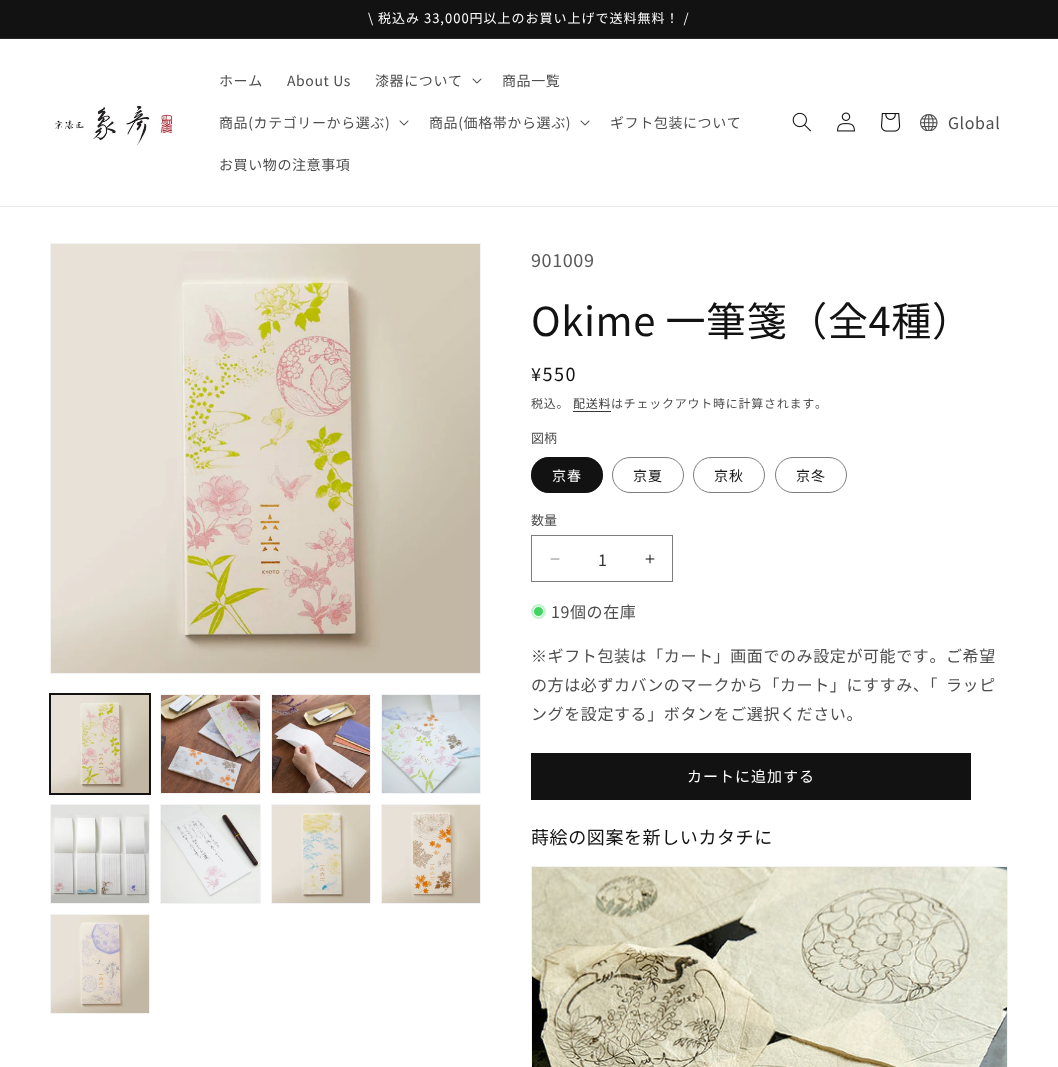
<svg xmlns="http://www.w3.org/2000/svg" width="1058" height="1067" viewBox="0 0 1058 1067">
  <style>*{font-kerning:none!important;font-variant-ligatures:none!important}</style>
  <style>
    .t1 { font: 13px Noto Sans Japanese; letter-spacing: 1px; fill: #fff; }
    .t2 { font: 14px Noto Sans Japanese; letter-spacing: 0.6px; fill: #4d4d4d; }
    .t3 { font: 16px Noto Sans Japanese; letter-spacing: 0.6px; fill: #4d4d4d; }
    .t4 { font: 18px Noto Sans Japanese; letter-spacing: 0.6px; fill: #595959; }
    .t5 { font: 40px Noto Sans Japanese; letter-spacing: 0.6px; fill: #121212; }
    .t6 { font: 18px Noto Sans Japanese; letter-spacing: 1.5px; fill: #121212; }
    .t7 { font: 12px Noto Sans Japanese; letter-spacing: 0.75px; fill: #4d4d4d; }
    .t8 { font: 12px Noto Sans Japanese; letter-spacing: 0.75px; fill: #363636; }
    .t9 { font: 13px Noto Sans Japanese; fill: #4d4d4d; }
    .t10 { font: 14px Noto Sans Japanese; letter-spacing: 1px; fill: #fff; }
    .t11 { font: 14px Noto Sans Japanese; letter-spacing: 1px; fill: #121212; }
    .t12 { font: 16px Noto Sans Japanese; fill: #363636; }
    .t13 { font: 15px Noto Sans Japanese; letter-spacing: 1px; fill: #fff; }
    .t14 { font: 18px Noto Sans Japanese; letter-spacing: 0.6px; fill: #121212; }
  </style>
  <rect width="100%" height="100%" fill="#fff"/>
  <rect x="0" y="0" width="1058" height="38" fill="#121212"/>
  <rect x="0" y="38" width="1058" height="1" fill="#252525"/>
  <text x="368" y="23" class="t1">\ 税込み 33,000円以上のお買い上げで送料無料！ /</text>
  <rect x="0" y="206" width="1058" height="1" fill="#ececec"/>
  <image x="54" y="105" width="121" height="41" href="images/1.png"/>
  <text x="219" y="86" class="t2">ホーム</text>
  <text x="287" y="86" class="t2">About Us</text>
  <text x="375" y="86" class="t2">漆器について</text>
  <image x="472" y="78" width="10" height="6" href="images/2.png"/>
  <text x="502" y="86" class="t2">商品一覧</text>
  <text x="219" y="128" class="t2">商品(カテゴリーから選ぶ)</text>
  <image x="399" y="120" width="10" height="6" href="images/2.png"/>
  <text x="429" y="128" class="t2">商品(価格帯から選ぶ)</text>
  <image x="580" y="120" width="10" height="6" href="images/2.png"/>
  <text x="610" y="128" class="t2">ギフト包装について</text>
  <text x="219" y="170" class="t2">お買い物の注意事項</text>
  <image x="792" y="112" width="19" height="20" href="images/3.png"/>
  <image x="837" y="112" width="18" height="20" href="images/4.png"/>
  <image x="881" y="113" width="20" height="19" href="images/5.png"/>
  <image x="920" y="114" width="18" height="17" href="images/6.png"/>
  <text x="948" y="129" class="t3">Global</text>
  <rect x="50.5" y="243.5" width="430" height="430" fill="none" stroke="#f3f3f3"/>
  <image x="51" y="244" width="429" height="429" href="images/7.png"/>
  <rect x="49.5" y="693.5" width="101" height="101" fill="none" stroke="#121212"/>
  <rect x="50.5" y="694.5" width="99" height="99" fill="none" stroke="#121212"/>
  <image x="51" y="695" width="98" height="98" href="images/8.png"/>
  <rect x="160.5" y="694.5" width="100" height="99" fill="none" stroke="#f3f3f3"/>
  <image x="161" y="695" width="99" height="98" href="images/9.png"/>
  <rect x="271.5" y="694.5" width="99" height="99" fill="none" stroke="#f3f3f3"/>
  <image x="272" y="695" width="98" height="98" href="images/10.png"/>
  <rect x="381.5" y="694.5" width="99" height="99" fill="none" stroke="#f3f3f3"/>
  <image x="382" y="695" width="98" height="98" href="images/11.png"/>
  <rect x="50.5" y="804.5" width="99" height="99" fill="none" stroke="#f3f3f3"/>
  <image x="51" y="805" width="98" height="98" href="images/12.png"/>
  <rect x="160.5" y="804.5" width="100" height="99" fill="none" stroke="#f3f3f3"/>
  <image x="161" y="805" width="99" height="98" href="images/13.png"/>
  <rect x="271.5" y="804.5" width="99" height="99" fill="none" stroke="#f3f3f3"/>
  <image x="272" y="805" width="98" height="98" href="images/14.png"/>
  <rect x="381.5" y="804.5" width="99" height="99" fill="none" stroke="#f3f3f3"/>
  <image x="382" y="805" width="98" height="98" href="images/15.png"/>
  <rect x="50.5" y="914.5" width="99" height="99" fill="none" stroke="#f3f3f3"/>
  <image x="51" y="915" width="98" height="98" href="images/16.png"/>
  <text x="531" y="267" class="t4">901009</text>
  <text x="531" y="336" class="t5">Okime 一筆箋（全4種）</text>
  <text x="531" y="381" class="t6">¥550</text>
  <text x="531" y="408" class="t7">税込。</text>
  <text x="573" y="408" class="t8">配送料</text>
  <rect x="573" y="411" width="38" height="1" fill="#363636"/>
  <text x="611" y="408" class="t7">はチェックアウト時に計算されます。</text>
  <text x="531" y="443" class="t9">図柄</text>
  <rect x="531" y="457" width="72" height="36" rx="18" fill="#121212"/>
  <rect x="531.5" y="457.5" width="71" height="35" rx="17.5" fill="none" stroke="#1212128c"/>
  <text x="552" y="481" class="t10">京春</text>
  <rect x="612.5" y="457.5" width="71" height="35" rx="17.5" fill="none" stroke="#7d7d7d"/>
  <text x="633" y="481" class="t11">京夏</text>
  <rect x="693.5" y="457.5" width="71" height="35" rx="17.5" fill="none" stroke="#7d7d7d"/>
  <text x="714" y="481" class="t11">京秋</text>
  <rect x="775.5" y="457.5" width="71" height="35" rx="17.5" fill="none" stroke="#7d7d7d"/>
  <text x="796" y="481" class="t11">京冬</text>
  <text x="531" y="525" class="t9">数量</text>
  <image x="550" y="558" width="10" height="2" href="images/17.png"/>
  <image x="645" y="554" width="10" height="10" href="images/18.png"/>
  <rect x="531.5" y="535.5" width="141" height="46" fill="none" stroke="#7d7d7d"/>
  <text x="598" y="566" class="t12">1</text>
  <circle cx="538.5" cy="611.5" r="7.5" fill="#c5f3cf"/>
  <circle cx="538.5" cy="611.5" r="5" fill="#3ed660" stroke="#fff"/>
  <text x="551" y="618" class="t3">19個の在庫</text>
  <text x="531" y="662" class="t3">※ギフト包装は「カート」画面でのみ設定が可能です。ご希望</text>
  <text x="531" y="691" class="t3">の方は必ずカバンのマークから「カート」にすすみ、「</text>
  <text x="946" y="691" class="t3">ラッピ</text>
  <text x="531" y="720" class="t3">ングを設定する」ボタンをご選択ください。</text>
  <rect x="531" y="753" width="440" height="47" fill="#121212"/>
  <text x="687" y="782" class="t13">カートに追加する</text>
  <text x="531" y="844" class="t14">蒔絵の図案を新しいカタチに</text>
  <rect x="531.5" y="866.5" width="476" height="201" fill="none" stroke="#f3f3f3"/>
  <image x="532" y="867" width="475" height="200" href="images/19.png"/>
</svg>
